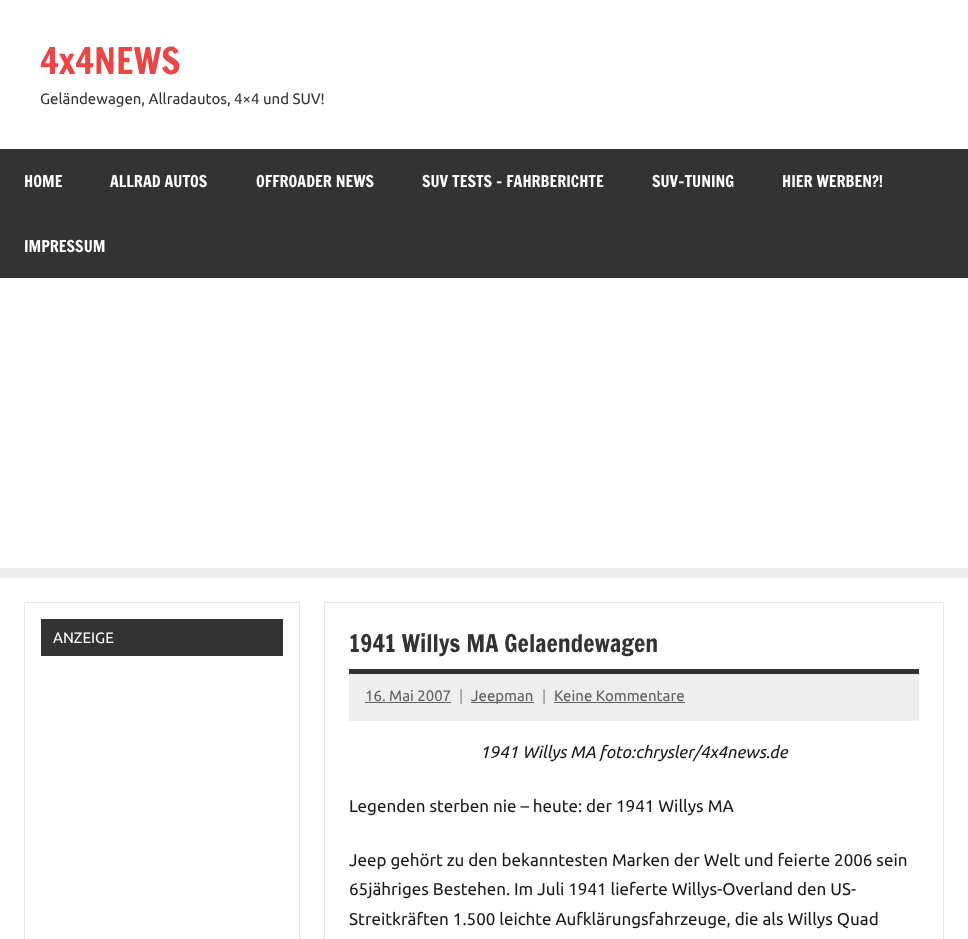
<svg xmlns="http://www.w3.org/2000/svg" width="968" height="939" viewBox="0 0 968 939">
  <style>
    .t1 { font: 36px Francois One; fill: #e84747; }
    .t2 { font: 15px Ubuntu; fill: #333; }
    .t3 { font: 16px Francois One; fill: #fff; }
    .t4 { font: 15px Ubuntu; fill: #fff; }
    .t5 { font: 24px Francois One; fill: #333; }
    .t6 { font: 15px Ubuntu; fill: #5f5f5f; }
    .t7 { font: 15px Ubuntu; fill: #8f8f8f; }
    .t8 { font: italic 17px Ubuntu; fill: #1a1a1a; }
    .t9 { font: 17px Ubuntu; fill: #1a1a1a; }
  </style>
  <rect width="100%" height="100%" fill="#ededef"/>
  <rect x="0" y="0" width="968" height="568" fill="#fff"/>
  <text x="40" y="74" class="t1">4x4NEWS</text>
  <text x="40" y="104" class="t2">Geländewagen, Allradautos, 4×4 und SUV!</text>
  <rect x="0" y="149" width="968" height="129" fill="#333"/>
  <text x="24" y="187" class="t3">HOME</text>
  <text x="110" y="187" class="t3">ALLRAD AUTOS</text>
  <text x="256" y="187" class="t3">OFFROADER NEWS</text>
  <text x="422" y="187" class="t3">SUV TESTS – FAHRBERICHTE</text>
  <text x="652" y="187" class="t3">SUV-TUNING</text>
  <text x="782" y="187" class="t3">HIER WERBEN?!</text>
  <text x="24" y="252" class="t3">IMPRESSUM</text>
  <rect x="0" y="578" width="968" height="361" fill="#fff"/>
  <rect x="24.5" y="602.5" width="275" height="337" fill="none" stroke="#e6e6e6"/>
  <rect x="41" y="619" width="242" height="37" fill="#333"/>
  <text x="53" y="643" class="t4">ANZEIGE</text>
  <rect x="324.5" y="602.5" width="619" height="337" fill="none" stroke="#e6e6e6"/>
  <rect x="349" y="669" width="570" height="5" fill="#333"/>
  <text x="349" y="652" class="t5">1941 Willys MA Gelaendewagen</text>
  <rect x="349" y="674" width="570" height="47" fill="#eee"/>
  <text x="365" y="701" class="t6">16. Mai 2007</text>
  <rect x="365" y="702" width="86" height="1" fill="#5f5f5f"/>
  <text x="459" y="701" class="t7">|</text>
  <rect x="471" y="702" width="63" height="1" fill="#5f5f5f"/>
  <text x="471" y="701" class="t6">Jeepman</text>
  <text x="542" y="701" class="t7">|</text>
  <text x="554" y="701" class="t6">Keine Kommentare</text>
  <rect x="554" y="702" width="131" height="1" fill="#5f5f5f"/>
  <text x="480" y="758" class="t8">1941 Willys MA foto:chrysler/4x4news.de</text>
  <text x="349" y="812" class="t9">Legenden sterben nie – heute: der 1941 Willys MA</text>
  <text x="349" y="866" class="t9">Jeep gehört zu den bekanntesten Marken der Welt und feierte 2006 sein</text>
  <text x="349" y="895" class="t9">65jähriges Bestehen. Im Juli 1941 lieferte Willys-Overland den US-</text>
  <text x="349" y="925" class="t9">Streitkräften 1.500 leichte Aufklärungsfahrzeuge, die als Willys Quad</text>
</svg>
